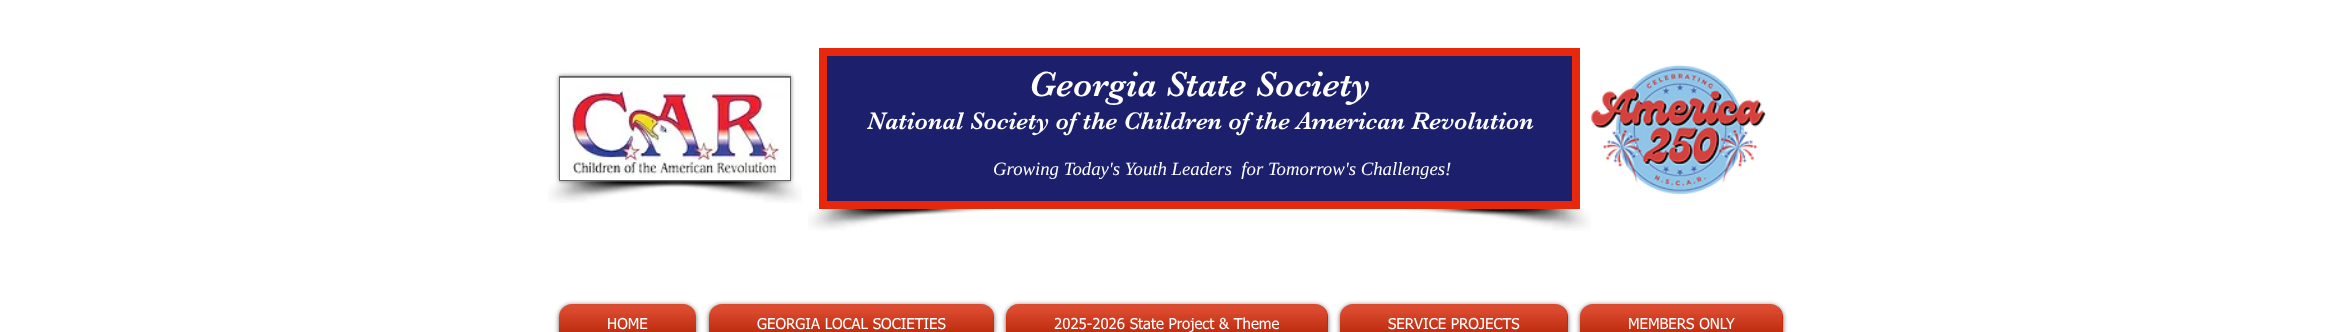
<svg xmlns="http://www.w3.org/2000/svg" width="2340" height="332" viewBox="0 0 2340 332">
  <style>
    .t1 { font: 36.25px 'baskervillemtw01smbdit'; fill: #fff; }
    .t2 { font: 25px 'baskervillemtw01smbdit'; fill: #fff; }
    .t3 { font: italic 18.75px Liberation Serif; fill: #fff; }
    .t4 { font: 15px tahoma; fill: #fff; }
  </style>
  <rect width="100%" height="100%" fill="#fff"/>
  <rect x="559" y="76" width="232" height="105" fill="#00000080" filter="blur(2px)"/>
  <rect x="559" y="76" width="232" height="105" fill="#606060"/>
  <image x="560" y="77" width="230" height="103" href="images/1.png"/>
  <image x="548" y="181" width="184" height="22" href="images/2.png"/>
  <image x="636" y="181" width="166" height="22" href="images/3.png"/>
  <rect x="823" y="52" width="753" height="153" fill="#1c1f6c" stroke="#e8280c" stroke-width="8"/>
  <text x="1029" y="96" class="t1">Georgia State Society</text>
  <text x="867" y="129" class="t2">National Society of the Children of the American Revolution</text>
  <text x="993" y="175" class="t3" xml:space="preserve">Growing Today's Youth Leaders  for Tomorrow's Challenges!</text>
  <image x="808" y="209" width="186" height="22" href="images/4.png"/>
  <image x="1405" y="209" width="186" height="22" href="images/5.png"/>
  <image x="1591" y="65" width="175" height="130" href="images/6.png"/>
  <rect x="559" y="305" width="137" height="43" rx="13" fill="#00000099" filter="blur(2.5px)"/>
  <rect x="559" y="304" width="137" height="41" rx="13" fill="#d32300"/>
  <image x="559" y="304" width="137" height="28" href="images/7.png"/>
  <image x="559" y="314" width="137" height="18" href="images/8.png"/>
  <text x="607" y="329" class="t4">HOME</text>
  <rect x="709" y="305" width="285" height="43" rx="13" fill="#00000099" filter="blur(2.5px)"/>
  <rect x="709" y="304" width="285" height="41" rx="13" fill="#d32300"/>
  <image x="709" y="304" width="285" height="28" href="images/9.png"/>
  <image x="709" y="314" width="285" height="18" href="images/10.png"/>
  <text x="757" y="329" class="t4">GEORGIA LOCAL SOCIETIES</text>
  <rect x="1006" y="305" width="322" height="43" rx="13" fill="#00000099" filter="blur(2.5px)"/>
  <rect x="1006" y="304" width="322" height="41" rx="13" fill="#d32300"/>
  <image x="1006" y="304" width="321" height="28" href="images/11.png"/>
  <image x="1006" y="314" width="321" height="18" href="images/12.png"/>
  <text x="1054" y="329" class="t4">2025-2026 State Project &amp; Theme</text>
  <rect x="1340" y="305" width="228" height="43" rx="13" fill="#00000099" filter="blur(2.5px)"/>
  <rect x="1340" y="304" width="228" height="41" rx="13" fill="#d32300"/>
  <image x="1340" y="304" width="227" height="28" href="images/13.png"/>
  <image x="1340" y="314" width="227" height="18" href="images/14.png"/>
  <text x="1388" y="329" class="t4">SERVICE PROJECTS</text>
  <rect x="1580" y="305" width="203" height="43" rx="13" fill="#00000099" filter="blur(2.5px)"/>
  <rect x="1580" y="304" width="203" height="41" rx="13" fill="#d32300"/>
  <image x="1580" y="304" width="202" height="28" href="images/15.png"/>
  <image x="1580" y="314" width="202" height="18" href="images/16.png"/>
  <text x="1628" y="329" class="t4">MEMBERS ONLY</text>
</svg>
